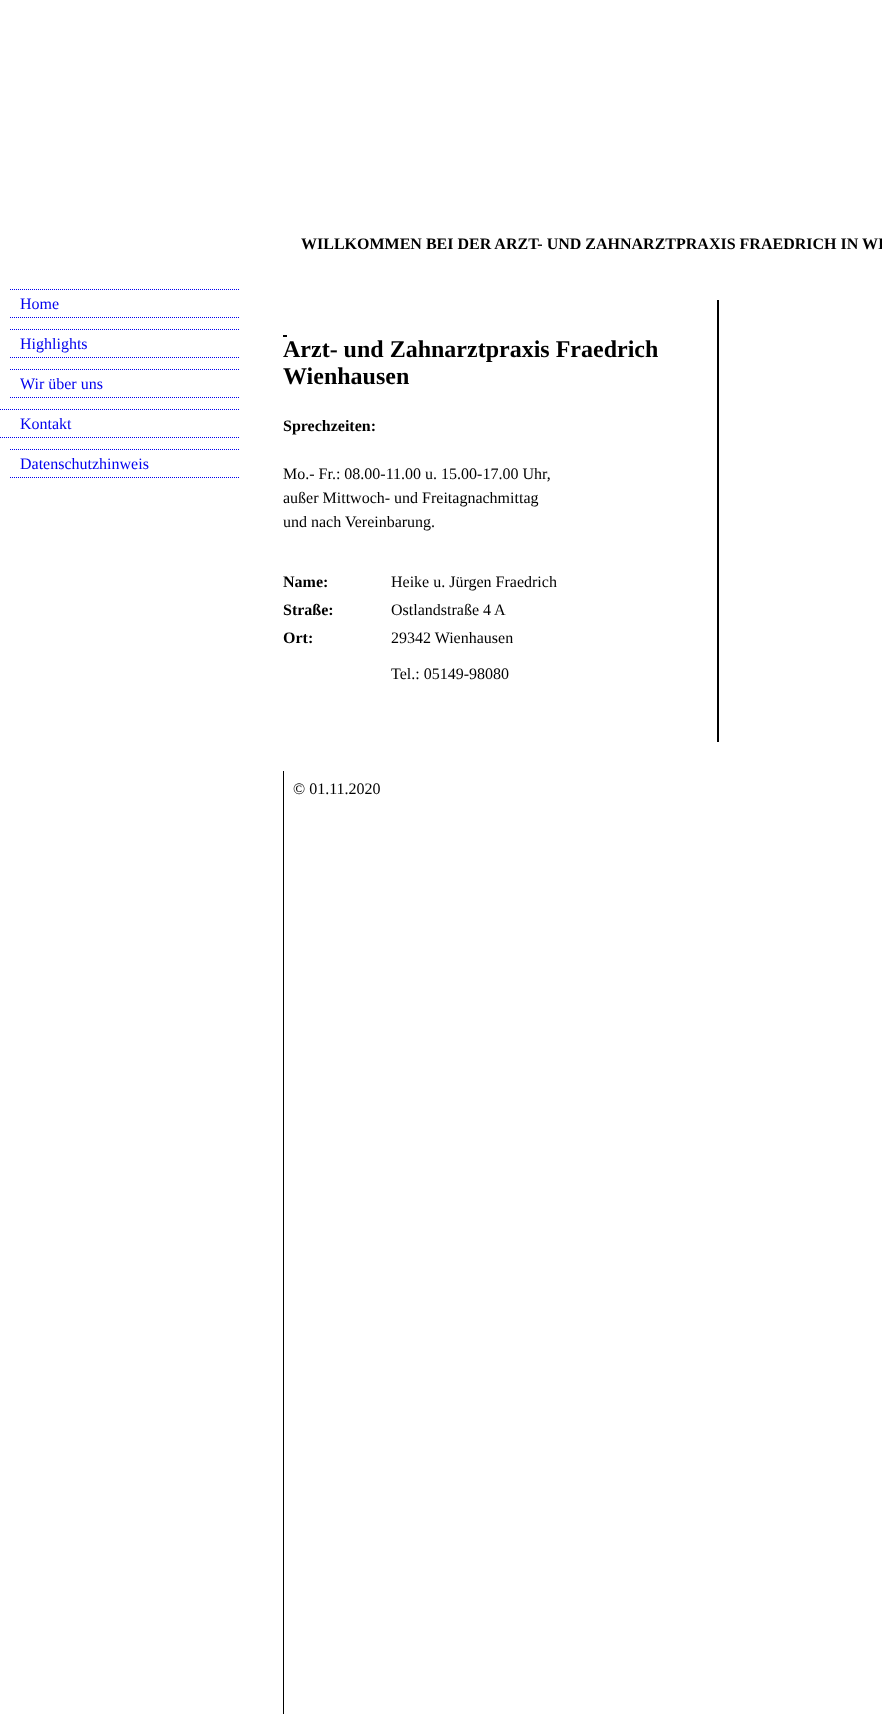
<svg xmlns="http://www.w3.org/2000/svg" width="882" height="1714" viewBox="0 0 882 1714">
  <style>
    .t1 { font: bold 16px Liberation Serif; fill: #000; }
    .t2 { font: 16px Liberation Serif; fill: #00e; }
    .t3 { font: bold 24px Liberation Serif; fill: #000; }
    .t4 { font: 16px Liberation Serif; fill: #000; }
  </style>
  <rect width="100%" height="100%" fill="#fff"/>
  <text x="301" y="249" class="t1">WILLKOMMEN BEI DER ARZT- UND ZAHNARZTPRAXIS FRAEDRICH IN WI</text>
  <path d="M10 289.5H239" fill="none" stroke="#00e" stroke-dasharray="1 1"/>
  <path d="M10 317.5H239" fill="none" stroke="#00e" stroke-dasharray="1 1"/>
  <text x="20" y="309" class="t2">Home</text>
  <path d="M10 329.5H239" fill="none" stroke="#00e" stroke-dasharray="1 1"/>
  <path d="M10 357.5H239" fill="none" stroke="#00e" stroke-dasharray="1 1"/>
  <text x="20" y="349" class="t2">Highlights</text>
  <path d="M10 369.5H239" fill="none" stroke="#00e" stroke-dasharray="1 1"/>
  <path d="M10 397.5H239" fill="none" stroke="#00e" stroke-dasharray="1 1"/>
  <text x="20" y="389" class="t2">Wir über uns</text>
  <path d="M0 409.5H239" fill="none" stroke="#00e" stroke-dasharray="1 1"/>
  <path d="M0 437.5H239" fill="none" stroke="#00e" stroke-dasharray="1 1"/>
  <text x="20" y="429" class="t2">Kontakt</text>
  <path d="M10 449.5H239" fill="none" stroke="#00e" stroke-dasharray="1 1"/>
  <path d="M10 477.5H239" fill="none" stroke="#00e" stroke-dasharray="1 1"/>
  <text x="20" y="469" class="t2">Datenschutzhinweis</text>
  <rect x="717" y="300" width="2" height="442" fill="#000"/>
  <rect x="283" y="335" width="4" height="2" fill="#000"/>
  <text x="283" y="357" class="t3">Arzt- und Zahnarztpraxis Fraedrich</text>
  <text x="283" y="384" class="t3">Wienhausen</text>
  <text x="283" y="431" class="t1">Sprechzeiten:</text>
  <text x="283" y="479" class="t4">Mo.- Fr.: 08.00-11.00 u. 15.00-17.00 Uhr,</text>
  <text x="283" y="503" class="t4">außer Mittwoch- und Freitagnachmittag</text>
  <text x="283" y="527" class="t4">und nach Vereinbarung.</text>
  <text x="283" y="587" class="t1">Name:</text>
  <text x="391" y="587" class="t4">Heike u. Jürgen Fraedrich</text>
  <text x="283" y="615" class="t1">Straße:</text>
  <text x="391" y="615" class="t4">Ostlandstraße 4 A</text>
  <text x="283" y="643" class="t1">Ort:</text>
  <text x="391" y="643" class="t4">29342 Wienhausen</text>
  <text x="391" y="679" class="t4">Tel.: 05149-98080</text>
  <rect x="283" y="771" width="1" height="943" fill="#000"/>
  <text x="293" y="794" class="t4">© 01.11.2020</text>
</svg>
